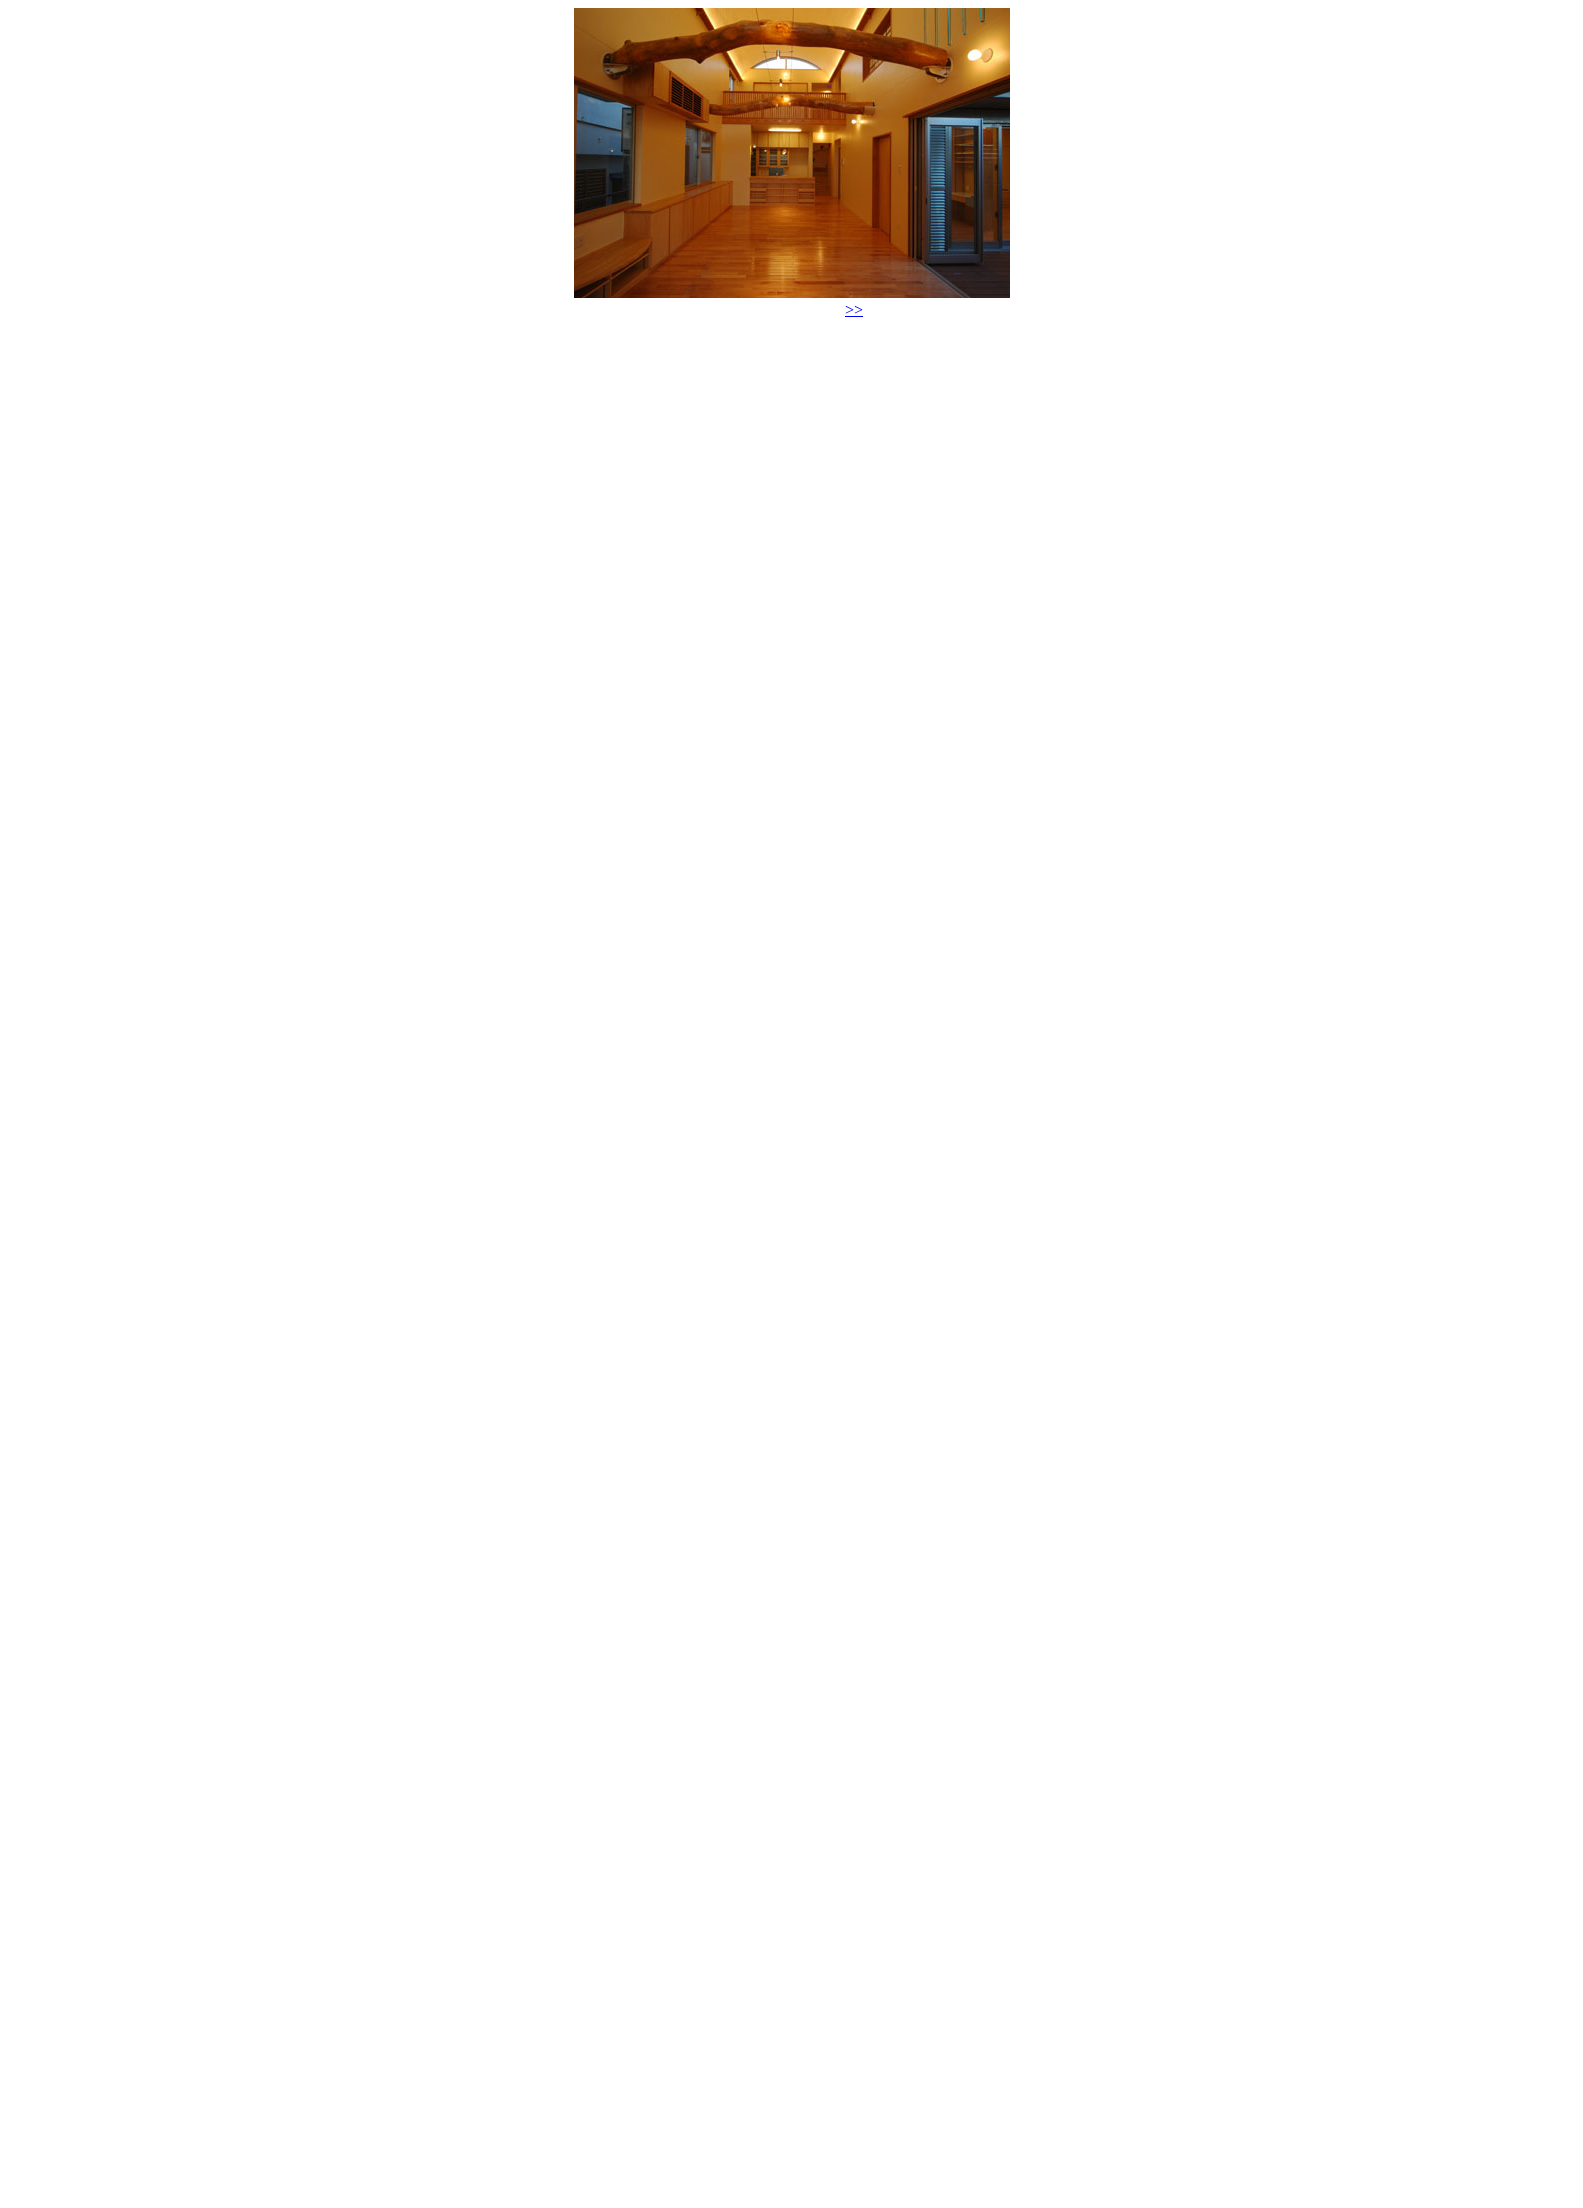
<svg xmlns="http://www.w3.org/2000/svg" width="1583" height="2208" viewBox="0 0 1583 2208">
  <style>
    .t1 { font: 16px Liberation Serif; fill: #00e; }
  </style>
  <rect width="100%" height="100%" fill="#fff"/>
  <image x="574" y="8" width="436" height="290" href="images/1.png"/>
  <text x="845" y="315" class="t1">&gt;&gt;</text>
  <rect x="845" y="316" width="18" height="1" fill="#00e"/>
</svg>
